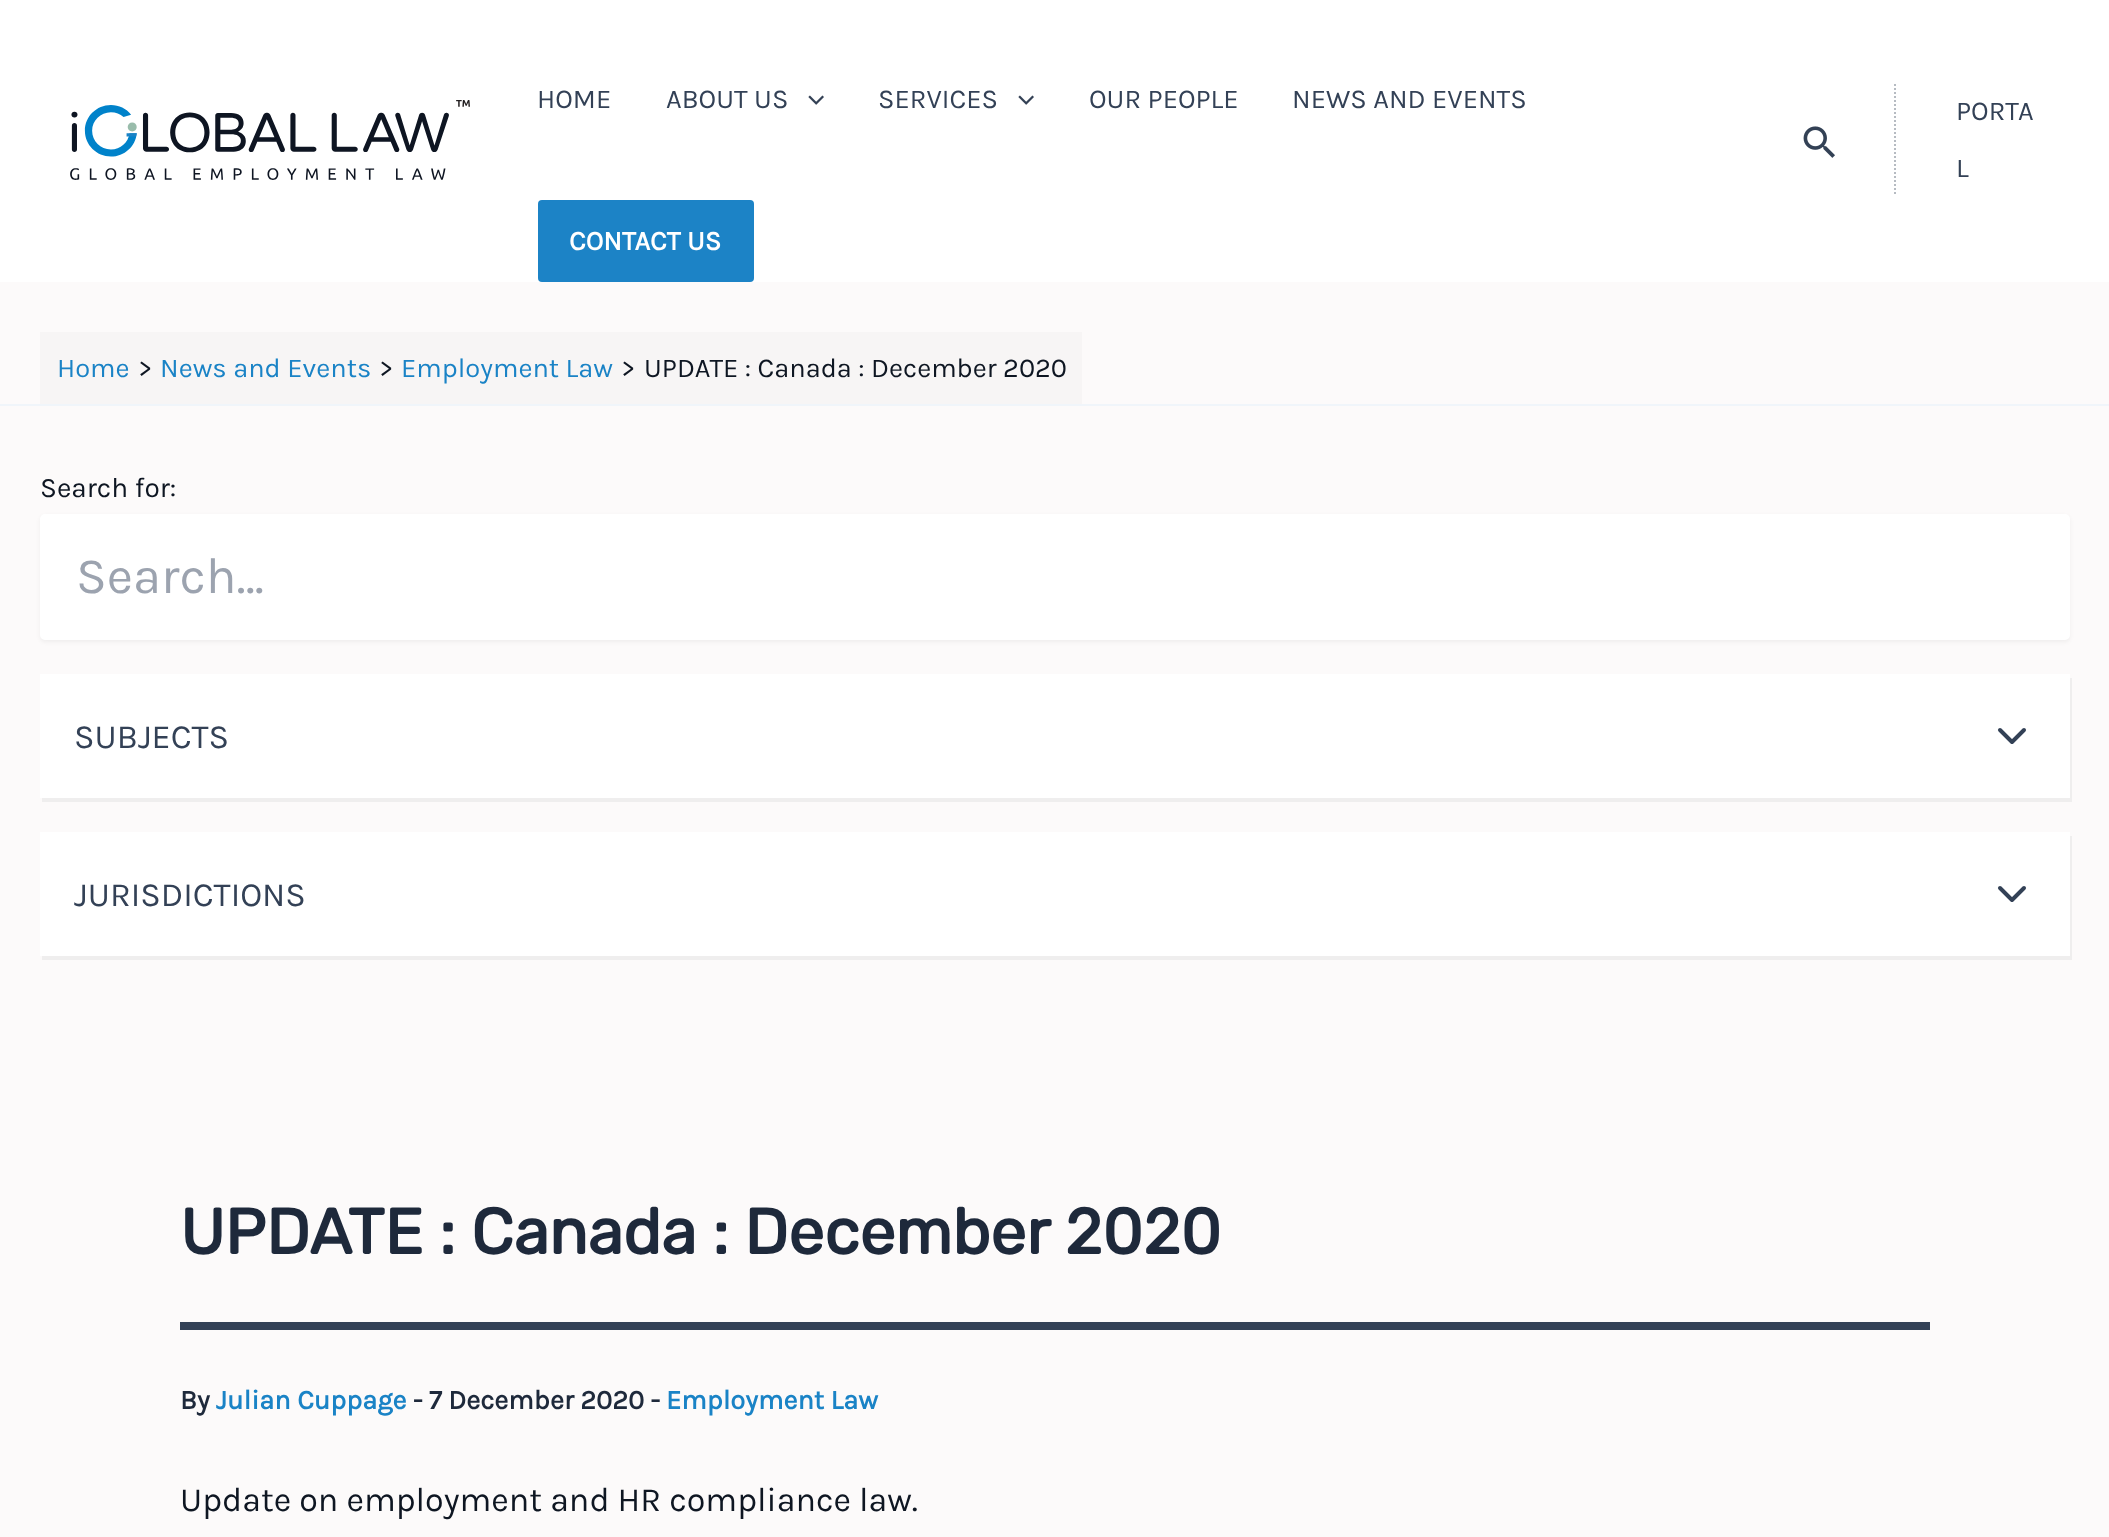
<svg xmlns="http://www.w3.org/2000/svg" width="2109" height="1537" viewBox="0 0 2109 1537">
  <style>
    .t1 { font: 27.25px Karla; fill: #334156; }
    .t2 { font: bold 27.25px Karla; fill: #fff; }
    .t3 { font: 27.25px Karla; fill: #1a83c6; }
    .t4 { font: 27.25px Karla; fill: #0e1622; }
    .t5 { font: 28px Karla; fill: #0e1622; }
    .t6 { font: 51px Karla; fill: #9ca3af; }
    .t7 { font: 34px Karla; fill: #334156; }
    .t8 { font: bold 64px Rubik; fill: #1e293b; }
    .t9 { font: bold 27.25px Karla; fill: #1e293b; }
    .t10 { font: bold 27.25px Karla; fill: #1a83c6; }
    .t11 { font: 34px Karla; fill: #0e1622; }
  </style>
  <rect width="100%" height="100%" fill="#fcfafa"/>
  <rect x="0" y="0" width="2109" height="282" fill="#fff"/>
  <image x="70" y="100" width="400" height="80" href="images/1.png"/>
  <text x="537" y="108" class="t1">HOME</text>
  <text x="666" y="108" class="t1">ABOUT US</text>
  <image x="808" y="95" width="16" height="10" href="images/2.png"/>
  <text x="878" y="108" class="t1">SERVICES</text>
  <image x="1018" y="95" width="16" height="10" href="images/2.png"/>
  <text x="1089" y="108" class="t1">OUR PEOPLE</text>
  <text x="1292" y="108" class="t1">NEWS AND EVENTS</text>
  <rect x="538" y="200" width="216" height="82" rx="4" fill="#1c83c6"/>
  <text x="569" y="250" class="t2">CONTACT US</text>
  <image x="1803" y="126" width="32" height="32" href="images/3.png"/>
  <path d="M1895 84V196" fill="none" stroke="#b6bbc2" stroke-width="2" stroke-dasharray="2 2"/>
  <text x="1956" y="120" class="t1">PORTA</text>
  <text x="1956" y="177" class="t1">L</text>
  <rect x="0" y="404" width="2109" height="2" fill="#f0f5fa"/>
  <rect x="40" y="332" width="1042" height="72" fill="#f7f5f5"/>
  <text x="57" y="377" class="t3">Home</text>
  <text x="138" y="377" class="t4">&gt;</text>
  <text x="160" y="377" class="t3">News and Events</text>
  <text x="379" y="377" class="t4">&gt;</text>
  <text x="401" y="377" class="t3">Employment Law</text>
  <text x="621" y="377" class="t4">&gt;</text>
  <text x="644" y="377" class="t4">UPDATE : Canada : December 2020</text>
  <text x="40" y="497" class="t5">Search for:</text>
  <rect x="40" y="516" width="2030" height="126" rx="5" fill="#0000000d" filter="blur(2px)"/>
  <rect x="41" y="515" width="2028" height="124" rx="4" fill="#fff" stroke="#fff" stroke-width="2"/>
  <text x="76" y="593" class="t6">Search...</text>
  <path d="M42 798V802H2072V678H2070V798Z" fill="#efeeee"/>
  <rect x="40" y="674" width="2030" height="124" fill="#fff"/>
  <text x="74" y="748" class="t7">SUBJECTS</text>
  <path d="M2000 730L2012 742L2024 730" fill="none" stroke="#334156" stroke-width="4" stroke-linecap="round" stroke-linejoin="round"/>
  <path d="M42 956V960H2072V836H2070V956Z" fill="#efeeee"/>
  <rect x="40" y="832" width="2030" height="124" fill="#fff"/>
  <text x="74" y="906" class="t7">JURISDICTIONS</text>
  <path d="M2000 888L2012 900L2024 888" fill="none" stroke="#334156" stroke-width="4" stroke-linecap="round" stroke-linejoin="round"/>
  <rect x="180" y="1322" width="1750" height="8" fill="#334156"/>
  <text x="180" y="1254" class="t8">UPDATE : Canada : December 2020</text>
  <text x="180" y="1409" class="t9">By</text>
  <text x="216" y="1409" class="t10">Julian Cuppage</text>
  <text x="413" y="1409" class="t9">- 7 December 2020 -</text>
  <text x="666" y="1409" class="t10">Employment Law</text>
  <text x="180" y="1511" class="t11">Update on employment and HR compliance law.</text>
</svg>
